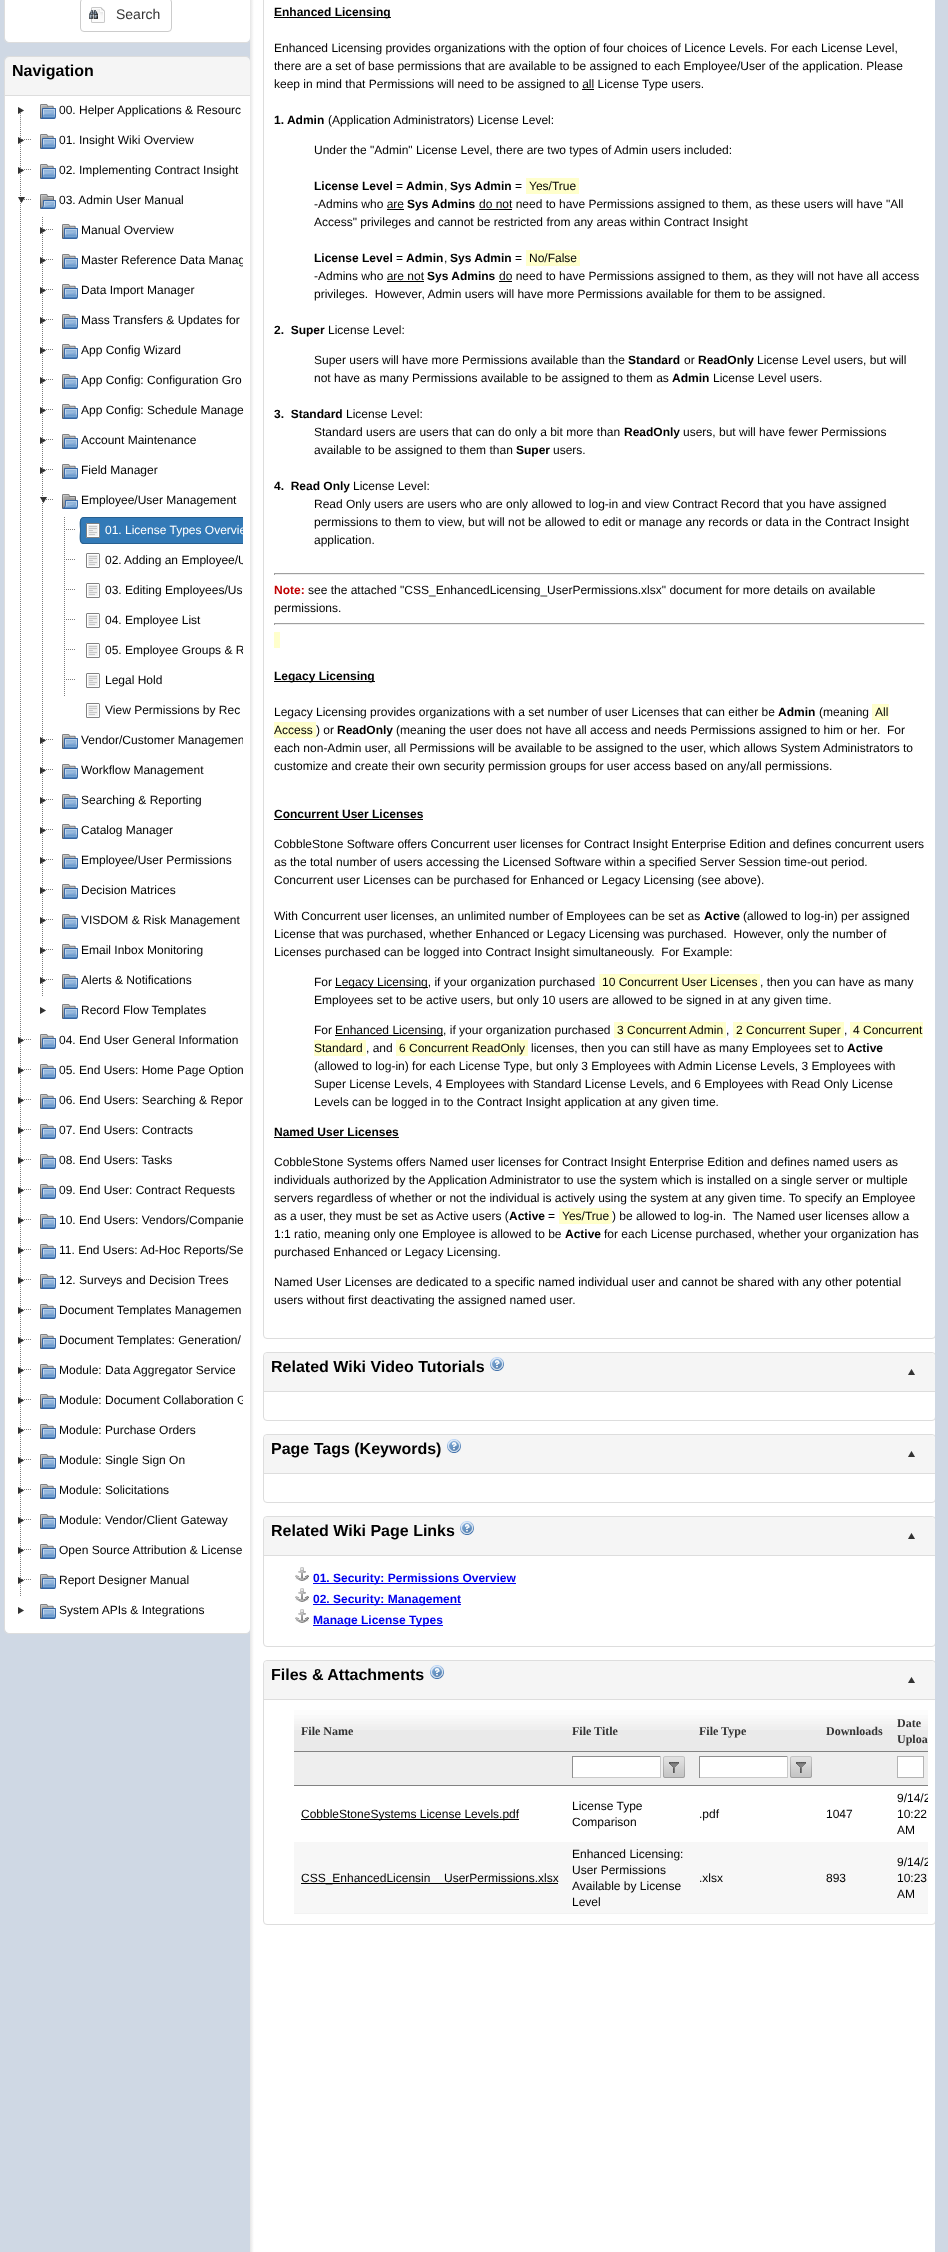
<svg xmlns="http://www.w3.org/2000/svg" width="948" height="2252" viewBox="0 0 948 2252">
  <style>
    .t1 { font: 14px Liberation Sans; fill: #333; }
    .t2 { font: bold 16px Liberation Sans; fill: #000; }
    .t3 { font: 12px Liberation Sans; fill: #000; }
    .t4 { font: 12px Liberation Sans; fill: #fff; }
    .t5 { font: bold 12px Liberation Sans; fill: #000; }
    .t6 { font: bold 12px Liberation Sans; fill: #c00000; }
    .t7 { font: bold 12px Liberation Sans; fill: #00e; }
    .t8 { font: bold 12px Liberation Serif; fill: #333; }
  </style>
  <defs>
    <linearGradient id="g1" gradientUnits="userSpaceOnUse" x1="254" y1="1005" x2="250" y2="1005"><stop offset="0" stop-color="#fff"/><stop offset="1" stop-color="#e6e6e6"/></linearGradient>
    <clipPath id="clip1"><rect x="0" y="0" width="250" height="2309"/></clipPath>
    <clipPath id="clip2"><rect x="5" y="-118" width="245" height="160" rx="3"/></clipPath>
    <clipPath id="clip3"><rect x="5" y="57" width="245" height="1576" rx="3"/></clipPath>
    <clipPath id="clip4"><rect x="12" y="96" width="231" height="1530"/></clipPath>
    <clipPath id="clip5"><rect x="254" y="0" width="681" height="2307"/></clipPath>
    <clipPath id="clip6"><rect x="264" y="1353" width="671" height="67" rx="3"/></clipPath>
    <clipPath id="clip7"><rect x="264" y="1435" width="671" height="67" rx="3"/></clipPath>
    <clipPath id="clip8"><rect x="264" y="1517" width="671" height="129" rx="3"/></clipPath>
    <clipPath id="clip9"><rect x="264" y="1661" width="671" height="263" rx="3"/></clipPath>
    <clipPath id="clip10"><rect x="271" y="1700" width="657" height="217"/></clipPath>
  </defs>
  <rect width="100%" height="100%" fill="#cfd8e4"/>
  <rect x="250" y="0" width="4" height="2252" fill="url(#g1)"/>
  <g clip-path="url(#clip1)">
    <rect x="4.5" y="-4.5" width="246" height="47" rx="3.5" fill="none" stroke="#ddd"/>
  </g>
  <rect x="5" y="0" width="245" height="35" fill="#fff"/>
  <rect x="80.5" y="-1.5" width="91" height="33" rx="3.5" fill="none" stroke="#ccc"/>
  <image x="89" y="7" width="16" height="16" href="images/1.png"/>
  <text x="116" y="19" class="t1">Search</text>
  <g clip-path="url(#clip2)">
    <path d="M5 35H12V42H9C7 42 5 40 5 38Z" fill="#fff"/>
  </g>
  <rect x="12" y="35" width="231" height="7" fill="#fff"/>
  <path d="M243 35H250V38C250 40 248 42 246 42H243Z" fill="#fff"/>
  <g clip-path="url(#clip1)">
    <rect x="4.5" y="56.5" width="246" height="1577" rx="3.5" fill="none" stroke="#ddd"/>
  </g>
  <path d="M9 57H12V96H5V61C5 59 7 57 9 57Z" fill="#f5f5f5"/>
  <rect x="5" y="95" width="238" height="1" fill="#ddd"/>
  <g clip-path="url(#clip3)">
    <path d="M243 57H246C248 57 250 59 250 61V96H243Z" fill="#f5f5f5"/>
  </g>
  <rect x="243" y="95" width="7" height="1" fill="#ddd"/>
  <rect x="12" y="57" width="231" height="38" fill="#f5f5f5"/>
  <text x="12" y="76" class="t2">Navigation</text>
  <rect x="5" y="96" width="245" height="1530" fill="#fff"/>
  <image x="20" y="112" width="1" height="14" href="images/2.png"/>
  <image x="18" y="107" width="6" height="7" href="images/3.png"/>
  <image x="40" y="104" width="16" height="15" href="images/4.png"/>
  <text x="59" y="114" class="t3">00. Helper Applications &amp; Resourc</text>
  <image x="20" y="127" width="1" height="29" href="images/5.png"/>
  <image x="22" y="139" width="9" height="1" href="images/6.png"/>
  <image x="18" y="137" width="6" height="7" href="images/7.png"/>
  <image x="40" y="134" width="16" height="15" href="images/4.png"/>
  <text x="59" y="144" class="t3">01. Insight Wiki Overview</text>
  <image x="20" y="157" width="1" height="29" href="images/5.png"/>
  <image x="22" y="169" width="9" height="1" href="images/6.png"/>
  <image x="18" y="167" width="6" height="7" href="images/7.png"/>
  <image x="40" y="164" width="16" height="15" href="images/4.png"/>
  <text x="59" y="174" class="t3">02. Implementing Contract Insight</text>
  <image x="20" y="187" width="1" height="839" href="images/8.png"/>
  <image x="24" y="199" width="7" height="1" href="images/9.png"/>
  <image x="18" y="197" width="7" height="6" href="images/10.png"/>
  <image x="40" y="194" width="16" height="15" href="images/11.png"/>
  <text x="59" y="204" class="t3">03. Admin User Manual</text>
  <image x="42" y="217" width="1" height="29" href="images/5.png"/>
  <image x="44" y="229" width="9" height="1" href="images/6.png"/>
  <image x="40" y="227" width="6" height="7" href="images/7.png"/>
  <image x="62" y="224" width="16" height="15" href="images/4.png"/>
  <text x="81" y="234" class="t3">Manual Overview</text>
  <image x="42" y="247" width="1" height="29" href="images/5.png"/>
  <image x="44" y="259" width="9" height="1" href="images/6.png"/>
  <image x="40" y="257" width="6" height="7" href="images/7.png"/>
  <image x="62" y="254" width="16" height="15" href="images/4.png"/>
  <g clip-path="url(#clip4)">
    <text x="81" y="264" class="t3">Master Reference Data Manag</text>
  </g>
  <image x="42" y="277" width="1" height="29" href="images/5.png"/>
  <image x="44" y="289" width="9" height="1" href="images/6.png"/>
  <image x="40" y="287" width="6" height="7" href="images/7.png"/>
  <image x="62" y="284" width="16" height="15" href="images/4.png"/>
  <text x="81" y="294" class="t3">Data Import Manager</text>
  <image x="42" y="307" width="1" height="29" href="images/5.png"/>
  <image x="44" y="319" width="9" height="1" href="images/6.png"/>
  <image x="40" y="317" width="6" height="7" href="images/7.png"/>
  <image x="62" y="314" width="16" height="15" href="images/4.png"/>
  <text x="81" y="324" class="t3">Mass Transfers &amp; Updates for</text>
  <image x="42" y="337" width="1" height="29" href="images/5.png"/>
  <image x="44" y="349" width="9" height="1" href="images/6.png"/>
  <image x="40" y="347" width="6" height="7" href="images/7.png"/>
  <image x="62" y="344" width="16" height="15" href="images/4.png"/>
  <text x="81" y="354" class="t3">App Config Wizard</text>
  <image x="42" y="367" width="1" height="29" href="images/5.png"/>
  <image x="44" y="379" width="9" height="1" href="images/6.png"/>
  <image x="40" y="377" width="6" height="7" href="images/7.png"/>
  <image x="62" y="374" width="16" height="15" href="images/4.png"/>
  <text x="81" y="384" class="t3">App Config: Configuration Gro</text>
  <image x="42" y="397" width="1" height="29" href="images/5.png"/>
  <image x="44" y="409" width="9" height="1" href="images/6.png"/>
  <image x="40" y="407" width="6" height="7" href="images/7.png"/>
  <image x="62" y="404" width="16" height="15" href="images/4.png"/>
  <text x="81" y="414" class="t3">App Config: Schedule Manage</text>
  <image x="42" y="427" width="1" height="29" href="images/5.png"/>
  <image x="44" y="439" width="9" height="1" href="images/6.png"/>
  <image x="40" y="437" width="6" height="7" href="images/7.png"/>
  <image x="62" y="434" width="16" height="15" href="images/4.png"/>
  <text x="81" y="444" class="t3">Account Maintenance</text>
  <image x="42" y="457" width="1" height="29" href="images/5.png"/>
  <image x="44" y="469" width="9" height="1" href="images/6.png"/>
  <image x="40" y="467" width="6" height="7" href="images/7.png"/>
  <image x="62" y="464" width="16" height="15" href="images/4.png"/>
  <text x="81" y="474" class="t3">Field Manager</text>
  <image x="42" y="487" width="1" height="239" href="images/12.png"/>
  <image x="46" y="499" width="7" height="1" href="images/9.png"/>
  <image x="40" y="497" width="7" height="6" href="images/10.png"/>
  <image x="62" y="494" width="16" height="15" href="images/11.png"/>
  <text x="81" y="504" class="t3">Employee/User Management</text>
  <image x="64" y="517" width="1" height="29" href="images/5.png"/>
  <image x="66" y="529" width="9" height="1" href="images/6.png"/>
  <path d="M84 517H243V544H84C82 544 80 542 80 540V521C80 519 82 517 84 517Z" fill="#337ab7"/>
  <g clip-path="url(#clip4)">
    <path d="M84 517C78 517 80 527 80 530C80 534 78 543 83 544H250V543H84C82 543 81 542 81 540V521C81 519 82 518 84 518H250V517Z" fill="#286090"/>
  </g>
  <image x="86" y="523" width="14" height="15" href="images/13.png"/>
  <g clip-path="url(#clip4)">
    <text x="105" y="534" class="t4">01. License Types Overvie</text>
  </g>
  <image x="64" y="547" width="1" height="29" href="images/5.png"/>
  <image x="66" y="559" width="9" height="1" href="images/6.png"/>
  <image x="86" y="553" width="14" height="15" href="images/14.png"/>
  <text x="105" y="564" class="t3">02.</text>
  <g clip-path="url(#clip4)">
    <text x="124" y="564" class="t3">Adding an Employee/U</text>
  </g>
  <image x="64" y="577" width="1" height="29" href="images/5.png"/>
  <image x="66" y="589" width="9" height="1" href="images/6.png"/>
  <image x="86" y="583" width="14" height="15" href="images/14.png"/>
  <text x="105" y="594" class="t3">03. Editing Employees/Us</text>
  <image x="64" y="607" width="1" height="29" href="images/5.png"/>
  <image x="66" y="619" width="9" height="1" href="images/6.png"/>
  <image x="86" y="613" width="14" height="15" href="images/14.png"/>
  <text x="105" y="624" class="t3">04. Employee List</text>
  <image x="64" y="637" width="1" height="29" href="images/5.png"/>
  <image x="66" y="649" width="9" height="1" href="images/6.png"/>
  <image x="86" y="643" width="14" height="15" href="images/14.png"/>
  <g clip-path="url(#clip4)">
    <text x="105" y="654" class="t3">05. Employee Groups &amp; R</text>
  </g>
  <image x="64" y="667" width="1" height="29" href="images/5.png"/>
  <image x="66" y="679" width="9" height="1" href="images/6.png"/>
  <image x="86" y="673" width="14" height="15" href="images/14.png"/>
  <text x="105" y="684" class="t3">Legal Hold</text>
  <image x="86" y="703" width="14" height="15" href="images/14.png"/>
  <text x="105" y="714" class="t3">View Permissions by Rec</text>
  <image x="42" y="727" width="1" height="29" href="images/5.png"/>
  <image x="44" y="739" width="9" height="1" href="images/6.png"/>
  <image x="40" y="737" width="6" height="7" href="images/7.png"/>
  <image x="62" y="734" width="16" height="15" href="images/4.png"/>
  <g clip-path="url(#clip4)">
    <text x="81" y="744" class="t3">Vendor/Customer Managemen</text>
  </g>
  <image x="42" y="757" width="1" height="29" href="images/5.png"/>
  <image x="44" y="769" width="9" height="1" href="images/6.png"/>
  <image x="40" y="767" width="6" height="7" href="images/7.png"/>
  <image x="62" y="764" width="16" height="15" href="images/4.png"/>
  <text x="81" y="774" class="t3">Workflow Management</text>
  <image x="42" y="787" width="1" height="29" href="images/5.png"/>
  <image x="44" y="799" width="9" height="1" href="images/6.png"/>
  <image x="40" y="797" width="6" height="7" href="images/7.png"/>
  <image x="62" y="794" width="16" height="15" href="images/4.png"/>
  <text x="81" y="804" class="t3">Searching &amp; Reporting</text>
  <image x="42" y="817" width="1" height="29" href="images/5.png"/>
  <image x="44" y="829" width="9" height="1" href="images/6.png"/>
  <image x="40" y="827" width="6" height="7" href="images/7.png"/>
  <image x="62" y="824" width="16" height="15" href="images/4.png"/>
  <text x="81" y="834" class="t3">Catalog Manager</text>
  <image x="42" y="847" width="1" height="29" href="images/5.png"/>
  <image x="44" y="859" width="9" height="1" href="images/6.png"/>
  <image x="40" y="857" width="6" height="7" href="images/7.png"/>
  <image x="62" y="854" width="16" height="15" href="images/4.png"/>
  <text x="81" y="864" class="t3">Employee/User Permissions</text>
  <image x="42" y="877" width="1" height="29" href="images/5.png"/>
  <image x="44" y="889" width="9" height="1" href="images/6.png"/>
  <image x="40" y="887" width="6" height="7" href="images/7.png"/>
  <image x="62" y="884" width="16" height="15" href="images/4.png"/>
  <text x="81" y="894" class="t3">Decision Matrices</text>
  <image x="42" y="907" width="1" height="29" href="images/5.png"/>
  <image x="44" y="919" width="9" height="1" href="images/6.png"/>
  <image x="40" y="917" width="6" height="7" href="images/7.png"/>
  <image x="62" y="914" width="16" height="15" href="images/4.png"/>
  <text x="81" y="924" class="t3">VISDOM &amp; Risk Management</text>
  <image x="42" y="937" width="1" height="29" href="images/5.png"/>
  <image x="44" y="949" width="9" height="1" href="images/6.png"/>
  <image x="40" y="947" width="6" height="7" href="images/7.png"/>
  <image x="62" y="944" width="16" height="15" href="images/4.png"/>
  <text x="81" y="954" class="t3">Email Inbox Monitoring</text>
  <image x="42" y="967" width="1" height="29" href="images/5.png"/>
  <image x="44" y="979" width="9" height="1" href="images/6.png"/>
  <image x="40" y="977" width="6" height="7" href="images/7.png"/>
  <image x="62" y="974" width="16" height="15" href="images/4.png"/>
  <text x="81" y="984" class="t3">Alerts &amp; Notifications</text>
  <image x="40" y="1007" width="6" height="7" href="images/15.png"/>
  <image x="62" y="1004" width="16" height="15" href="images/4.png"/>
  <text x="81" y="1014" class="t3">Record Flow Templates</text>
  <image x="20" y="1027" width="1" height="29" href="images/5.png"/>
  <image x="22" y="1039" width="9" height="1" href="images/6.png"/>
  <image x="18" y="1037" width="6" height="7" href="images/7.png"/>
  <image x="40" y="1034" width="16" height="15" href="images/4.png"/>
  <text x="59" y="1044" class="t3">04. End User General Information</text>
  <image x="20" y="1057" width="1" height="29" href="images/5.png"/>
  <image x="22" y="1069" width="9" height="1" href="images/6.png"/>
  <image x="18" y="1067" width="6" height="7" href="images/7.png"/>
  <image x="40" y="1064" width="16" height="15" href="images/4.png"/>
  <text x="59" y="1074" class="t3">05. End Users: Home Page Option</text>
  <image x="20" y="1087" width="1" height="29" href="images/5.png"/>
  <image x="22" y="1099" width="9" height="1" href="images/6.png"/>
  <image x="18" y="1097" width="6" height="7" href="images/7.png"/>
  <image x="40" y="1094" width="16" height="15" href="images/4.png"/>
  <text x="59" y="1104" class="t3">06. End Users: Searching &amp; Repor</text>
  <image x="20" y="1117" width="1" height="29" href="images/5.png"/>
  <image x="22" y="1129" width="9" height="1" href="images/6.png"/>
  <image x="18" y="1127" width="6" height="7" href="images/7.png"/>
  <image x="40" y="1124" width="16" height="15" href="images/4.png"/>
  <text x="59" y="1134" class="t3">07. End Users: Contracts</text>
  <image x="20" y="1147" width="1" height="29" href="images/5.png"/>
  <image x="22" y="1159" width="9" height="1" href="images/6.png"/>
  <image x="18" y="1157" width="6" height="7" href="images/7.png"/>
  <image x="40" y="1154" width="16" height="15" href="images/4.png"/>
  <text x="59" y="1164" class="t3">08. End Users: Tasks</text>
  <image x="20" y="1177" width="1" height="29" href="images/5.png"/>
  <image x="22" y="1189" width="9" height="1" href="images/6.png"/>
  <image x="18" y="1187" width="6" height="7" href="images/7.png"/>
  <image x="40" y="1184" width="16" height="15" href="images/4.png"/>
  <text x="59" y="1194" class="t3">09. End User: Contract Requests</text>
  <image x="20" y="1207" width="1" height="29" href="images/5.png"/>
  <image x="22" y="1219" width="9" height="1" href="images/6.png"/>
  <image x="18" y="1217" width="6" height="7" href="images/7.png"/>
  <image x="40" y="1214" width="16" height="15" href="images/4.png"/>
  <text x="59" y="1224" class="t3">10. End Users: Vendors/Companie</text>
  <image x="20" y="1237" width="1" height="29" href="images/5.png"/>
  <image x="22" y="1249" width="9" height="1" href="images/6.png"/>
  <image x="18" y="1247" width="6" height="7" href="images/7.png"/>
  <image x="40" y="1244" width="16" height="15" href="images/4.png"/>
  <text x="59" y="1254" class="t3">11. End Users: Ad-Hoc Reports/Se</text>
  <image x="20" y="1267" width="1" height="29" href="images/5.png"/>
  <image x="22" y="1279" width="9" height="1" href="images/6.png"/>
  <image x="18" y="1277" width="6" height="7" href="images/7.png"/>
  <image x="40" y="1274" width="16" height="15" href="images/4.png"/>
  <text x="59" y="1284" class="t3">12. Surveys and Decision Trees</text>
  <image x="20" y="1297" width="1" height="29" href="images/5.png"/>
  <image x="22" y="1309" width="9" height="1" href="images/6.png"/>
  <image x="18" y="1307" width="6" height="7" href="images/7.png"/>
  <image x="40" y="1304" width="16" height="15" href="images/4.png"/>
  <text x="59" y="1314" class="t3">Document Templates Managemen</text>
  <image x="20" y="1327" width="1" height="29" href="images/5.png"/>
  <image x="22" y="1339" width="9" height="1" href="images/6.png"/>
  <image x="18" y="1337" width="6" height="7" href="images/7.png"/>
  <image x="40" y="1334" width="16" height="15" href="images/4.png"/>
  <text x="59" y="1344" class="t3">Document Templates: Generation/</text>
  <image x="20" y="1357" width="1" height="29" href="images/5.png"/>
  <image x="22" y="1369" width="9" height="1" href="images/6.png"/>
  <image x="18" y="1367" width="6" height="7" href="images/7.png"/>
  <image x="40" y="1364" width="16" height="15" href="images/4.png"/>
  <text x="59" y="1374" class="t3">Module: Data Aggregator Service</text>
  <image x="20" y="1387" width="1" height="29" href="images/5.png"/>
  <image x="22" y="1399" width="9" height="1" href="images/6.png"/>
  <image x="18" y="1397" width="6" height="7" href="images/7.png"/>
  <image x="40" y="1394" width="16" height="15" href="images/4.png"/>
  <g clip-path="url(#clip4)">
    <text x="59" y="1404" class="t3">Module: Document Collaboration G</text>
  </g>
  <image x="20" y="1417" width="1" height="29" href="images/5.png"/>
  <image x="22" y="1429" width="9" height="1" href="images/6.png"/>
  <image x="18" y="1427" width="6" height="7" href="images/7.png"/>
  <image x="40" y="1424" width="16" height="15" href="images/4.png"/>
  <text x="59" y="1434" class="t3">Module: Purchase Orders</text>
  <image x="20" y="1447" width="1" height="29" href="images/5.png"/>
  <image x="22" y="1459" width="9" height="1" href="images/6.png"/>
  <image x="18" y="1457" width="6" height="7" href="images/7.png"/>
  <image x="40" y="1454" width="16" height="15" href="images/4.png"/>
  <text x="59" y="1464" class="t3">Module: Single Sign On</text>
  <image x="20" y="1477" width="1" height="29" href="images/5.png"/>
  <image x="22" y="1489" width="9" height="1" href="images/6.png"/>
  <image x="18" y="1487" width="6" height="7" href="images/7.png"/>
  <image x="40" y="1484" width="16" height="15" href="images/4.png"/>
  <text x="59" y="1494" class="t3">Module: Solicitations</text>
  <image x="20" y="1507" width="1" height="29" href="images/5.png"/>
  <image x="22" y="1519" width="9" height="1" href="images/6.png"/>
  <image x="18" y="1517" width="6" height="7" href="images/7.png"/>
  <image x="40" y="1514" width="16" height="15" href="images/4.png"/>
  <text x="59" y="1524" class="t3">Module: Vendor/Client Gateway</text>
  <image x="20" y="1537" width="1" height="29" href="images/5.png"/>
  <image x="22" y="1549" width="9" height="1" href="images/6.png"/>
  <image x="18" y="1547" width="6" height="7" href="images/7.png"/>
  <image x="40" y="1544" width="16" height="15" href="images/4.png"/>
  <text x="59" y="1554" class="t3">Open Source Attribution &amp; License</text>
  <image x="20" y="1567" width="1" height="29" href="images/5.png"/>
  <image x="22" y="1579" width="9" height="1" href="images/6.png"/>
  <image x="18" y="1577" width="6" height="7" href="images/7.png"/>
  <image x="40" y="1574" width="16" height="15" href="images/4.png"/>
  <text x="59" y="1584" class="t3">Report Designer Manual</text>
  <image x="18" y="1607" width="6" height="7" href="images/15.png"/>
  <image x="40" y="1604" width="16" height="15" href="images/4.png"/>
  <text x="59" y="1614" class="t3">System APIs &amp; Integrations</text>
  <g clip-path="url(#clip3)">
    <path d="M5 1626H12V1633H9C7 1633 5 1631 5 1629Z" fill="#fff"/>
  </g>
  <rect x="12" y="1626" width="231" height="7" fill="#fff"/>
  <path d="M243 1626H250V1629C250 1631 248 1633 246 1633H243Z" fill="#fff"/>
  <rect x="254" y="0" width="681" height="2252" fill="#fff"/>
  <g clip-path="url(#clip5)">
    <rect x="263.5" y="-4.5" width="672" height="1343" rx="3.5" fill="none" stroke="#ddd"/>
  </g>
  <rect x="274" y="17" width="117" height="1" fill="#000"/>
  <text x="274" y="16" class="t5">Enhanced Licensing</text>
  <text x="274" y="52" class="t3">Enhanced Licensing provides organizations with the option of four choices of Licence Levels. For each License Level,</text>
  <text x="274" y="70" class="t3">there are a set of base permissions that are available to be assigned to each Employee/User of the application. Please</text>
  <text x="274" y="88" class="t3">keep in mind that Permissions will need to be assigned to all License Type users.</text>
  <rect x="582" y="89" width="12" height="1" fill="#000"/>
  <text x="274" y="124" class="t5">1. Admin</text>
  <text x="328" y="124" class="t3">(Application Administrators) License Level:</text>
  <text x="314" y="154" class="t3">Under the "Admin" License Level, there are two types of Admin users included:</text>
  <text x="314" y="190" class="t5">License Level</text>
  <text x="396" y="190" class="t3">=</text>
  <text x="406" y="190" class="t5">Admin</text>
  <text x="450" y="190" class="t5">Sys Admin</text>
  <text x="515" y="190" class="t3">=</text>
  <rect x="526" y="178" width="53" height="16" fill="#ffc"/>
  <text x="529" y="190" class="t3">Yes/True</text>
  <text x="444" y="190" class="t3">,</text>
  <text x="314" y="208" class="t3">-Admins who are</text>
  <rect x="387" y="209" width="17" height="1" fill="#000"/>
  <text x="407" y="208" class="t5">Sys Admins</text>
  <rect x="479" y="209" width="33" height="1" fill="#000"/>
  <text x="479" y="208" class="t3">do not need to have Permissions assigned to them, as these users will have "All</text>
  <text x="314" y="226" class="t3">Access" privileges and cannot be restricted from any areas within Contract Insight</text>
  <text x="314" y="262" class="t5">License Level</text>
  <text x="396" y="262" class="t3">=</text>
  <text x="406" y="262" class="t5">Admin</text>
  <text x="450" y="262" class="t5">Sys Admin</text>
  <text x="515" y="262" class="t3">=</text>
  <rect x="526" y="250" width="54" height="16" fill="#ffc"/>
  <text x="529" y="262" class="t3">No/False</text>
  <text x="444" y="262" class="t3">,</text>
  <text x="314" y="280" class="t3">-Admins who are not</text>
  <rect x="387" y="281" width="37" height="1" fill="#000"/>
  <text x="427" y="280" class="t5">Sys Admins</text>
  <rect x="499" y="281" width="13" height="1" fill="#000"/>
  <text x="499" y="280" class="t3">do need to have Permissions assigned to them, as they will not have all access</text>
  <text x="314" y="298" class="t3" xml:space="preserve">privileges.  However, Admin users will have more Permissions available for them to be assigned.</text>
  <text x="274" y="334" class="t5" xml:space="preserve">2.  Super</text>
  <text x="328" y="334" class="t3">License Level:</text>
  <text x="314" y="364" class="t3">Super users will have more Permissions available than the</text>
  <text x="628" y="364" class="t5">Standard</text>
  <text x="684" y="364" class="t3">or</text>
  <text x="698" y="364" class="t5">ReadOnly</text>
  <text x="757" y="364" class="t3">License Level users, but will</text>
  <text x="314" y="382" class="t3">not have as many Permissions available to be assigned to them as</text>
  <text x="672" y="382" class="t5">Admin</text>
  <text x="713" y="382" class="t3">License Level users.</text>
  <text x="274" y="418" class="t5" xml:space="preserve">3.  Standard</text>
  <text x="346" y="418" class="t3">License Level:</text>
  <text x="314" y="436" class="t3">Standard users are users that can do only a bit more than</text>
  <text x="624" y="436" class="t5">ReadOnly</text>
  <text x="683" y="436" class="t3">users, but will have fewer Permissions</text>
  <text x="314" y="454" class="t3">available to be assigned to them than</text>
  <text x="516" y="454" class="t5">Super</text>
  <text x="553" y="454" class="t3">users.</text>
  <text x="274" y="490" class="t5" xml:space="preserve">4.  Read Only</text>
  <text x="353" y="490" class="t3">License Level:</text>
  <text x="314" y="508" class="t3">Read Only users are users who are only allowed to log-in and view Contract Record that you have assigned</text>
  <text x="314" y="526" class="t3">permissions to them to view, but will not be allowed to edit or manage any records or data in the Contract Insight</text>
  <text x="314" y="544" class="t3">application.</text>
  <rect x="274" y="573" width="651" height="1" fill="#9f9f9f"/>
  <rect x="924" y="573" width="1" height="2" fill="#eee"/>
  <rect x="274" y="574" width="651" height="1" fill="#eee"/>
  <rect x="274" y="573" width="1" height="2" fill="#9f9f9f"/>
  <text x="274" y="594" class="t6">Note:</text>
  <text x="308" y="594" class="t3">see the attached "CSS_EnhancedLicensing_UserPermissions.xlsx" document for more details on available</text>
  <text x="274" y="612" class="t3">permissions.</text>
  <rect x="274" y="623" width="651" height="1" fill="#9f9f9f"/>
  <rect x="924" y="623" width="1" height="2" fill="#eee"/>
  <rect x="274" y="624" width="651" height="1" fill="#eee"/>
  <rect x="274" y="623" width="1" height="2" fill="#9f9f9f"/>
  <rect x="274" y="681" width="101" height="1" fill="#000"/>
  <text x="274" y="680" class="t5">Legacy Licensing</text>
  <rect x="274" y="632" width="6" height="16" fill="#ffc"/>
  <text x="274" y="716" class="t3">Legacy Licensing provides organizations with a set number of user Licenses that can either be</text>
  <text x="778" y="716" class="t5">Admin</text>
  <text x="819" y="716" class="t3">(meaning</text>
  <rect x="872" y="704" width="17" height="16" fill="#ffc"/>
  <text x="875" y="716" class="t3">All</text>
  <rect x="274" y="722" width="42" height="16" fill="#ffc"/>
  <text x="274" y="734" class="t3">Access</text>
  <text x="316" y="734" class="t3">) or</text>
  <text x="337" y="734" class="t5">ReadOnly</text>
  <text x="396" y="734" class="t3" xml:space="preserve">(meaning the user does not have all access and needs Permissions assigned to him or her.  For</text>
  <text x="274" y="752" class="t3">each non-Admin user, all Permissions will be available to be assigned to the user, which allows System Administrators to</text>
  <text x="274" y="770" class="t3">customize and create their own security permission groups for user access based on any/all permissions.</text>
  <text x="274" y="818" class="t5">Concurrent User Licenses</text>
  <rect x="274" y="819" width="149" height="1" fill="#000"/>
  <text x="274" y="848" class="t3">CobbleStone Software offers Concurrent user licenses for Contract Insight Enterprise Edition and defines concurrent users</text>
  <text x="274" y="866" class="t3">as the total number of users accessing the Licensed Software within a specified Server Session time-out period.</text>
  <text x="274" y="884" class="t3">Concurrent user Licenses can be purchased for Enhanced or Legacy Licensing (see above).</text>
  <text x="274" y="920" class="t3">With Concurrent user licenses, an unlimited number of Employees can be set as</text>
  <text x="704" y="920" class="t5">Active</text>
  <text x="743" y="920" class="t3">(allowed to log-in) per assigned</text>
  <text x="274" y="938" class="t3" xml:space="preserve">License that was purchased, whether Enhanced or Legacy Licensing was purchased.  However, only the number of</text>
  <text x="274" y="956" class="t3" xml:space="preserve">Licenses purchased can be logged into Contract Insight simultaneously.  For Example:</text>
  <text x="314" y="986" class="t3">For</text>
  <rect x="335" y="987" width="93" height="1" fill="#000"/>
  <text x="335" y="986" class="t3">Legacy Licensing, if your organization purchased</text>
  <rect x="599" y="974" width="161" height="16" fill="#ffc"/>
  <text x="602" y="986" class="t3">10 Concurrent User Licenses</text>
  <text x="760" y="986" class="t3">, then you can have as many</text>
  <text x="314" y="1004" class="t3">Employees set to be active users, but only 10 users are allowed to be signed in at any given time.</text>
  <text x="314" y="1034" class="t3">For</text>
  <rect x="335" y="1035" width="108" height="1" fill="#000"/>
  <text x="335" y="1034" class="t3">Enhanced Licensing, if your organization purchased</text>
  <rect x="614" y="1022" width="112" height="16" fill="#ffc"/>
  <text x="617" y="1034" class="t3">3 Concurrent Admin</text>
  <text x="726" y="1034" class="t3">,</text>
  <rect x="733" y="1022" width="111" height="16" fill="#ffc"/>
  <text x="736" y="1034" class="t3">2 Concurrent Super</text>
  <text x="844" y="1034" class="t3">,</text>
  <rect x="850" y="1022" width="73" height="16" fill="#ffc"/>
  <text x="853" y="1034" class="t3">4 Concurrent</text>
  <rect x="314" y="1040" width="52" height="16" fill="#ffc"/>
  <text x="314" y="1052" class="t3">Standard</text>
  <text x="366" y="1052" class="t3">, and</text>
  <rect x="396" y="1040" width="132" height="16" fill="#ffc"/>
  <text x="399" y="1052" class="t3">6 Concurrent ReadOnly</text>
  <text x="531" y="1052" class="t3">licenses, then you can still have as many Employees set to</text>
  <text x="847" y="1052" class="t5">Active</text>
  <text x="314" y="1070" class="t3">(allowed to log-in) for each License Type, but only 3 Employees with Admin License Levels, 3 Employees with</text>
  <text x="314" y="1088" class="t3">Super License Levels, 4 Employees with Standard License Levels, and 6 Employees with Read Only License</text>
  <text x="314" y="1106" class="t3">Levels can be logged in to the Contract Insight application at any given time.</text>
  <text x="274" y="1136" class="t5">Named User Licenses</text>
  <rect x="274" y="1137" width="125" height="1" fill="#000"/>
  <text x="274" y="1166" class="t3">CobbleStone Systems offers Named user licenses for Contract Insight Enterprise Edition and defines named users as</text>
  <text x="274" y="1184" class="t3">individuals authorized by the Application Administrator to use the system which is installed on a single server or multiple</text>
  <text x="274" y="1202" class="t3">servers regardless of whether or not the individual is actively using the system at any given time. To specify an Employee</text>
  <text x="274" y="1220" class="t3">as a user, they must be set as Active users (</text>
  <text x="509" y="1220" class="t5">Active</text>
  <text x="548" y="1220" class="t3">=</text>
  <rect x="559" y="1208" width="53" height="16" fill="#ffc"/>
  <text x="562" y="1220" class="t3">Yes/True</text>
  <text x="612" y="1220" class="t3" xml:space="preserve">) be allowed to log-in.  The Named user licenses allow a</text>
  <text x="274" y="1238" class="t3">1:1 ratio, meaning only one Employee is allowed to be</text>
  <text x="565" y="1238" class="t5">Active</text>
  <text x="604" y="1238" class="t3">for each License purchased, whether your organization has</text>
  <text x="274" y="1256" class="t3">purchased Enhanced or Legacy Licensing.</text>
  <text x="274" y="1286" class="t3">Named User Licenses are dedicated to a specific named individual user and cannot be shared with any other potential</text>
  <text x="274" y="1304" class="t3">users without first deactivating the assigned named user.</text>
  <g clip-path="url(#clip5)">
    <rect x="263.5" y="1352.5" width="672" height="68" rx="3.5" fill="none" stroke="#ddd"/>
  </g>
  <path d="M268 1353H271V1392H264V1357C264 1355 266 1353 268 1353Z" fill="#f5f5f5"/>
  <rect x="264" y="1391" width="664" height="1" fill="#ddd"/>
  <g clip-path="url(#clip6)">
    <path d="M928 1353H931C933 1353 935 1355 935 1357V1392H928Z" fill="#f5f5f5"/>
  </g>
  <rect x="928" y="1391" width="7" height="1" fill="#ddd"/>
  <rect x="271" y="1353" width="657" height="38" fill="#f5f5f5"/>
  <text x="271" y="1372" class="t2">Related Wiki Video Tutorials</text>
  <image x="490" y="1357" width="14" height="14" href="images/16.png"/>
  <image x="908" y="1369" width="7" height="6" href="images/17.png"/>
  <g clip-path="url(#clip5)">
    <rect x="263.5" y="1434.5" width="672" height="68" rx="3.5" fill="none" stroke="#ddd"/>
  </g>
  <path d="M268 1435H271V1474H264V1439C264 1437 266 1435 268 1435Z" fill="#f5f5f5"/>
  <rect x="264" y="1473" width="664" height="1" fill="#ddd"/>
  <g clip-path="url(#clip7)">
    <path d="M928 1435H931C933 1435 935 1437 935 1439V1474H928Z" fill="#f5f5f5"/>
  </g>
  <rect x="928" y="1473" width="7" height="1" fill="#ddd"/>
  <rect x="271" y="1435" width="657" height="38" fill="#f5f5f5"/>
  <text x="271" y="1454" class="t2">Page Tags (Keywords)</text>
  <image x="447" y="1439" width="14" height="14" href="images/16.png"/>
  <image x="908" y="1451" width="7" height="6" href="images/17.png"/>
  <g clip-path="url(#clip5)">
    <rect x="263.5" y="1516.5" width="672" height="130" rx="3.5" fill="none" stroke="#ddd"/>
  </g>
  <path d="M268 1517H271V1556H264V1521C264 1519 266 1517 268 1517Z" fill="#f5f5f5"/>
  <rect x="264" y="1555" width="664" height="1" fill="#ddd"/>
  <g clip-path="url(#clip8)">
    <path d="M928 1517H931C933 1517 935 1519 935 1521V1556H928Z" fill="#f5f5f5"/>
  </g>
  <rect x="928" y="1555" width="7" height="1" fill="#ddd"/>
  <rect x="271" y="1517" width="657" height="38" fill="#f5f5f5"/>
  <text x="271" y="1536" class="t2">Related Wiki Page Links</text>
  <image x="460" y="1521" width="14" height="14" href="images/16.png"/>
  <image x="908" y="1533" width="7" height="6" href="images/17.png"/>
  <image x="295" y="1567" width="14" height="14" href="images/18.png"/>
  <rect x="313" y="1583" width="203" height="1" fill="#00e"/>
  <text x="313" y="1582" class="t7">01. Security: Permissions Overview</text>
  <image x="295" y="1588" width="14" height="14" href="images/18.png"/>
  <rect x="313" y="1604" width="148" height="1" fill="#00e"/>
  <text x="313" y="1603" class="t7">02. Security: Management</text>
  <image x="295" y="1609" width="14" height="14" href="images/18.png"/>
  <rect x="313" y="1625" width="130" height="1" fill="#00e"/>
  <text x="313" y="1624" class="t7">Manage License Types</text>
  <g clip-path="url(#clip5)">
    <rect x="263.5" y="1660.5" width="672" height="264" rx="3.5" fill="none" stroke="#ddd"/>
  </g>
  <path d="M268 1661H271V1700H264V1665C264 1663 266 1661 268 1661Z" fill="#f5f5f5"/>
  <rect x="264" y="1699" width="664" height="1" fill="#ddd"/>
  <g clip-path="url(#clip9)">
    <path d="M928 1661H931C933 1661 935 1663 935 1665V1700H928Z" fill="#f5f5f5"/>
  </g>
  <rect x="928" y="1699" width="7" height="1" fill="#ddd"/>
  <rect x="271" y="1661" width="657" height="38" fill="#f5f5f5"/>
  <text x="271" y="1680" class="t2">Files &amp; Attachments</text>
  <image x="430" y="1665" width="14" height="14" href="images/16.png"/>
  <image x="908" y="1677" width="7" height="6" href="images/17.png"/>
  <rect x="294" y="1730" width="634" height="21" fill="#eaeaea"/>
  <image x="294" y="1710" width="271" height="20" href="images/19.png"/>
  <rect x="294" y="1751" width="634" height="1" fill="#828282"/>
  <text x="301" y="1735" class="t8">File Name</text>
  <image x="565" y="1710" width="127" height="20" href="images/20.png"/>
  <text x="572" y="1735" class="t8">File Title</text>
  <image x="692" y="1710" width="127" height="20" href="images/20.png"/>
  <text x="699" y="1735" class="t8">File Type</text>
  <image x="819" y="1710" width="71" height="20" href="images/21.png"/>
  <text x="826" y="1735" class="t8">Downloads</text>
  <image x="890" y="1710" width="38" height="20" href="images/22.png"/>
  <text x="897" y="1727" class="t8">Date</text>
  <text x="897" y="1743" class="t8">Uploa</text>
  <rect x="294" y="1752" width="634" height="33" fill="#eee"/>
  <rect x="573" y="1757" width="87" height="20" fill="#fff"/>
  <rect x="572" y="1756" width="89" height="1" fill="#8e8e8e"/>
  <rect x="660" y="1756" width="1" height="22" fill="#c9c9c9"/>
  <rect x="572" y="1777" width="89" height="1" fill="#c9c9c9"/>
  <rect x="572" y="1756" width="1" height="22" fill="#8e8e8e"/>
  <image x="663" y="1756" width="22" height="22" href="images/23.png"/>
  <rect x="700" y="1757" width="87" height="20" fill="#fff"/>
  <rect x="699" y="1756" width="89" height="1" fill="#8e8e8e"/>
  <rect x="787" y="1756" width="1" height="22" fill="#c9c9c9"/>
  <rect x="699" y="1777" width="89" height="1" fill="#c9c9c9"/>
  <rect x="699" y="1756" width="1" height="22" fill="#8e8e8e"/>
  <image x="790" y="1756" width="22" height="22" href="images/23.png"/>
  <rect x="897.5" y="1756.5" width="26" height="21" fill="#fff" stroke="#b3b3b3"/>
  <rect x="294" y="1785" width="634" height="1" fill="#828282"/>
  <rect x="301" y="1819" width="218" height="1" fill="#000"/>
  <text x="301" y="1818" class="t3">CobbleStoneSystems License Levels.pdf</text>
  <text x="572" y="1810" class="t3">License Type</text>
  <text x="572" y="1826" class="t3">Comparison</text>
  <text x="699" y="1818" class="t3">.pdf</text>
  <text x="826" y="1818" class="t3">1047</text>
  <g clip-path="url(#clip10)">
    <text x="897" y="1802" class="t3">9/14/2</text>
  </g>
  <text x="897" y="1818" class="t3">10:22</text>
  <text x="897" y="1834" class="t3">AM</text>
  <rect x="294" y="1842" width="634" height="71" fill="#f7f7f7"/>
  <rect x="294" y="1913" width="634" height="1" fill="#f2f2f2"/>
  <rect x="301" y="1883" width="257" height="1" fill="#000"/>
  <text x="301" y="1882" class="t3">CSS_EnhancedLicensin</text>
  <text x="444" y="1882" class="t3">UserPermissions.xlsx</text>
  <text x="572" y="1858" class="t3">Enhanced Licensing:</text>
  <text x="572" y="1874" class="t3">User Permissions</text>
  <text x="572" y="1890" class="t3">Available by License</text>
  <text x="572" y="1906" class="t3">Level</text>
  <text x="699" y="1882" class="t3">.xlsx</text>
  <text x="826" y="1882" class="t3">893</text>
  <g clip-path="url(#clip10)">
    <text x="897" y="1866" class="t3">9/14/2</text>
  </g>
  <text x="897" y="1882" class="t3">10:23</text>
  <text x="897" y="1898" class="t3">AM</text>
</svg>
